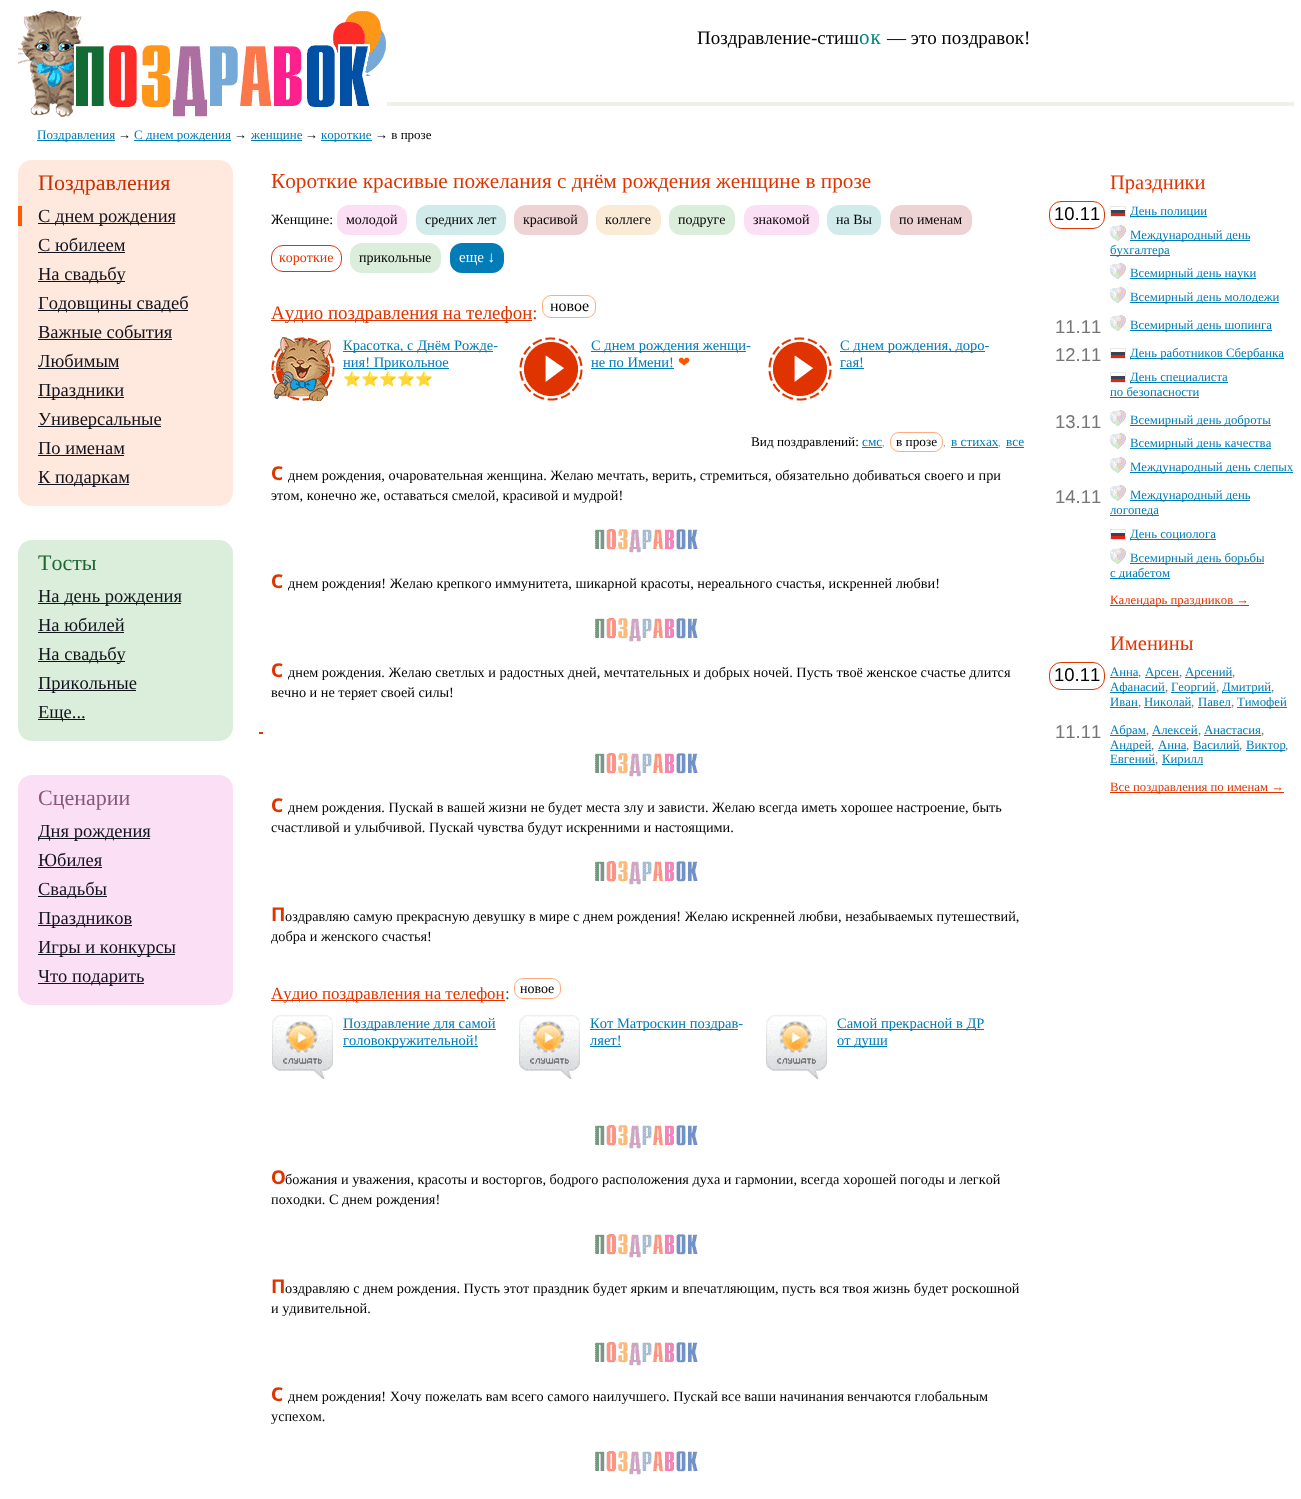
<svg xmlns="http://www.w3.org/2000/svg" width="1301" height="1499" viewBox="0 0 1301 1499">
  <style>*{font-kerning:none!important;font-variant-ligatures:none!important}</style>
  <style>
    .t1 { font: 19px Liberation Serif; fill: #000; }
    .t2 { font: 21px Liberation Serif; letter-spacing: 1px; fill: #008484; }
    .t3 { font: 13px Liberation Serif; fill: #027cb7; }
    .t4 { font: 13px Liberation Serif; fill: #000; }
    .t5 { font: 22px Liberation Serif; fill: #c92f00; }
    .t6 { font: 18.5px Liberation Serif; fill: #11131d; }
    .t7 { font: 22px Liberation Serif; fill: #1e6632; }
    .t8 { font: 22px Liberation Serif; fill: #87577e; }
    .t9 { font: 21.25px Liberation Serif; fill: #e03400; }
    .t10 { font: 14px Liberation Serif; fill: #000; }
    .t11 { font: 14px Liberation Serif; fill: #e03400; }
    .t12 { font: 15px Liberation Serif; fill: #fff; }
    .t13 { font: 18.9px Liberation Serif; fill: #e03400; }
    .t14 { font: 16px Liberation Serif; fill: #000; }
    .t15 { font: 14.5px Liberation Serif; fill: #027cb7; }
    .t16 { font: 14.5px Noto Color Emoji; fill: #f50; }
    .t17 { font: 14.5px DejaVu Sans; fill: #f50; }
    .t18 { font: 13.25px Liberation Serif; fill: #000; }
    .t19 { font: 13.25px Liberation Serif; fill: #027cb7; }
    .t20 { font: 11px Liberation Serif; fill: #aaa; }
    .t21 { font: bold 19px Noto Sans; fill: #e03400; }
    .t22 { font: 14.27px Liberation Serif; fill: #000; }
    .t23 { font: 16.9px Liberation Serif; fill: #e03400; }
    .t24 { font: 16.9px Liberation Serif; fill: #1e6632; }
    .t25 { font: 20.5px Liberation Serif; fill: #e03400; }
    .t26 { font: 18.5px Liberation Sans; fill: #000; }
    .t27 { font: 12.75px Liberation Serif; fill: #027cb7; }
    .t28 { font: 18.5px Liberation Sans; fill: #757575; }
    .t29 { font: 12.75px Liberation Serif; fill: #e03400; }
    .t30 { font: 12.75px Liberation Serif; fill: #757575; }
  </style>
  <rect width="100%" height="100%" fill="#fff"/>
  <rect x="387" y="102" width="907" height="4" fill="#f1f1e7"/>
  <image x="18" y="10" width="369" height="107" href="images/1.png"/>
  <text x="697" y="44" class="t1">Поздравление-стиш</text>
  <text x="859" y="44" class="t2">ок</text>
  <text x="887" y="44" class="t1">— это поздравок!</text>
  <rect x="37" y="140" width="78" height="1" fill="#027cb7"/>
  <text x="37" y="139" class="t3">Поздравления</text>
  <text x="118" y="139" class="t4">→</text>
  <rect x="134" y="140" width="97" height="1" fill="#027cb7"/>
  <text x="134" y="139" class="t3">С днем рождения</text>
  <text x="234" y="139" class="t4">→</text>
  <rect x="251" y="140" width="51" height="1" fill="#027cb7"/>
  <text x="251" y="139" class="t3">женщине</text>
  <text x="305" y="139" class="t4">→</text>
  <rect x="321" y="140" width="51" height="1" fill="#027cb7"/>
  <text x="321" y="139" class="t3">короткие</text>
  <text x="375" y="139" class="t4">→ в прозе</text>
  <rect x="18" y="160" width="215" height="346" rx="14" fill="#ffe8dd"/>
  <text x="38" y="190" class="t5">Поздравления</text>
  <rect x="38" y="223" width="137" height="1" fill="#11131d"/>
  <text x="38" y="222" class="t6">С днем рождения</text>
  <rect x="18" y="206" width="4" height="20" fill="#ff5a00"/>
  <text x="38" y="251" class="t6">С юбилеем</text>
  <rect x="38" y="252" width="87" height="1" fill="#11131d"/>
  <rect x="38" y="281" width="87" height="1" fill="#11131d"/>
  <text x="38" y="280" class="t6">На свадьбу</text>
  <rect x="38" y="310" width="150" height="1" fill="#11131d"/>
  <text x="38" y="309" class="t6">Годовщины свадеб</text>
  <text x="38" y="338" class="t6">Важные события</text>
  <rect x="38" y="339" width="134" height="1" fill="#11131d"/>
  <text x="38" y="367" class="t6">Любимым</text>
  <rect x="38" y="368" width="81" height="1" fill="#11131d"/>
  <rect x="38" y="397" width="86" height="1" fill="#11131d"/>
  <text x="38" y="396" class="t6">Праздники</text>
  <rect x="38" y="426" width="123" height="1" fill="#11131d"/>
  <text x="38" y="425" class="t6">Универсальные</text>
  <text x="38" y="454" class="t6">По именам</text>
  <rect x="38" y="455" width="86" height="1" fill="#11131d"/>
  <rect x="38" y="484" width="91" height="1" fill="#11131d"/>
  <text x="38" y="483" class="t6">К подаркам</text>
  <rect x="18" y="540" width="215" height="201" rx="14" fill="#dbeedb"/>
  <text x="38" y="570" class="t7">Тосты</text>
  <rect x="38" y="603" width="143" height="1" fill="#11131d"/>
  <text x="38" y="602" class="t6">На день рождения</text>
  <text x="38" y="631" class="t6">На юбилей</text>
  <rect x="38" y="632" width="86" height="1" fill="#11131d"/>
  <rect x="38" y="661" width="87" height="1" fill="#11131d"/>
  <text x="38" y="660" class="t6">На свадьбу</text>
  <rect x="38" y="690" width="98" height="1" fill="#11131d"/>
  <text x="38" y="689" class="t6">Прикольные</text>
  <rect x="38" y="719" width="47" height="1" fill="#11131d"/>
  <text x="38" y="718" class="t6">Еще...</text>
  <rect x="18" y="775" width="215" height="230" rx="14" fill="#fbdff5"/>
  <text x="38" y="805" class="t8">Сценарии</text>
  <rect x="38" y="838" width="112" height="1" fill="#11131d"/>
  <text x="38" y="837" class="t6">Дня рождения</text>
  <text x="38" y="866" class="t6">Юбилея</text>
  <rect x="38" y="867" width="64" height="1" fill="#11131d"/>
  <rect x="38" y="896" width="69" height="1" fill="#11131d"/>
  <text x="38" y="895" class="t6">Свадьбы</text>
  <rect x="38" y="925" width="94" height="1" fill="#11131d"/>
  <text x="38" y="924" class="t6">Праздников</text>
  <rect x="38" y="954" width="137" height="1" fill="#11131d"/>
  <text x="38" y="953" class="t6">Игры и конкурсы</text>
  <rect x="38" y="983" width="106" height="1" fill="#11131d"/>
  <text x="38" y="982" class="t6">Что подарить</text>
  <text x="271" y="188" class="t9">Короткие красивые пожелания с днём рождения женщине в прозе</text>
  <text x="271" y="224" class="t10">Женщине:</text>
  <rect x="337" y="205" width="70" height="30" rx="12" fill="#fbdff5"/>
  <text x="346" y="224" class="t10">молодой</text>
  <rect x="416" y="205" width="90" height="30" rx="12" fill="#d1ebeb"/>
  <text x="425" y="224" class="t10">средних лет</text>
  <rect x="514" y="205" width="74" height="30" rx="12" fill="#edd3d3"/>
  <text x="523" y="224" class="t10">красивой</text>
  <rect x="596" y="205" width="65" height="30" rx="12" fill="#faebd7"/>
  <text x="605" y="224" class="t10">коллеге</text>
  <rect x="669" y="205" width="66" height="30" rx="12" fill="#dbeedb"/>
  <text x="678" y="224" class="t10">подруге</text>
  <rect x="744" y="205" width="75" height="30" rx="12" fill="#fbdff5"/>
  <text x="753" y="224" class="t10">знакомой</text>
  <rect x="827" y="205" width="54" height="30" rx="12" fill="#d1ebeb"/>
  <text x="836" y="224" class="t10">на Вы</text>
  <rect x="890" y="205" width="82" height="30" rx="12" fill="#edd3d3"/>
  <text x="899" y="224" class="t10">по именам</text>
  <rect x="271.5" y="245.5" width="70" height="26" rx="11.5" fill="none" stroke="#e03400"/>
  <text x="279" y="262" class="t11">короткие</text>
  <rect x="350" y="243" width="91" height="30" rx="12" fill="#dbeedb"/>
  <text x="359" y="262" class="t10">прикольные</text>
  <rect x="450" y="243" width="54" height="30" rx="12" fill="#027cb7"/>
  <text x="459" y="262" class="t12">еще ↓</text>
  <rect x="271" y="320" width="261" height="1" fill="#e03400"/>
  <text x="271" y="319" class="t13">Аудио поздравления на телефон:</text>
  <rect x="542.5" y="295.5" width="53" height="22" rx="8.5" fill="none" stroke="#ffac80"/>
  <text x="550" y="311" class="t14">новое</text>
  <image x="271" y="337" width="64" height="64" href="images/2.png"/>
  <rect x="343" y="351" width="150" height="1" fill="#027cb7"/>
  <text x="343" y="350" class="t15">Красотка, с Днём Рожде-</text>
  <rect x="343" y="368" width="106" height="1" fill="#027cb7"/>
  <text x="343" y="367" class="t15">ния! Прикольное</text>
  <text x="343" y="384" class="t16">⭐⭐⭐⭐⭐</text>
  <image x="519" y="337" width="64" height="64" href="images/3.png"/>
  <rect x="591" y="351" width="155" height="1" fill="#027cb7"/>
  <text x="591" y="350" class="t15">С днем рождения женщи-</text>
  <text x="591" y="367" class="t15">не по Имени!</text>
  <rect x="591" y="368" width="83" height="1" fill="#027cb7"/>
  <text x="678" y="367" class="t17">❤</text>
  <image x="768" y="337" width="64" height="64" href="images/3.png"/>
  <rect x="840" y="351" width="145" height="1" fill="#027cb7"/>
  <text x="840" y="350" class="t15">С днем рождения, доро-</text>
  <text x="840" y="367" class="t15">гая!</text>
  <rect x="840" y="368" width="24" height="1" fill="#027cb7"/>
  <text x="751" y="446" class="t18">Вид поздравлений:</text>
  <text x="862" y="446" class="t19">смс</text>
  <text x="882" y="446" class="t20">,</text>
  <rect x="862" y="447" width="20" height="1" fill="#027cb7"/>
  <rect x="890.5" y="432.5" width="52" height="19" rx="8.5" fill="none" stroke="#ffac80"/>
  <text x="896" y="446" class="t18">в прозе</text>
  <text x="943" y="446" class="t20">,</text>
  <text x="951" y="446" class="t19">в стихах</text>
  <text x="998" y="446" class="t20">,</text>
  <rect x="951" y="447" width="47" height="1" fill="#027cb7"/>
  <rect x="1006" y="447" width="18" height="1" fill="#027cb7"/>
  <text x="1006" y="446" class="t19">все</text>
  <text x="271" y="480" class="t21">С</text>
  <text x="288" y="480" class="t22">днем рождения, очаровательная женщина. Желаю мечтать, верить, стремиться, обязательно добиваться своего и при</text>
  <text x="271" y="500" class="t22">этом, конечно же, оставаться смелой, красивой и мудрой!</text>
  <image x="595" y="529" width="103" height="24" href="images/4.png"/>
  <text x="271" y="588" class="t21">С</text>
  <text x="288" y="588" class="t22">днем рождения! Желаю крепкого иммунитета, шикарной красоты, нереального счастья, искренней любви!</text>
  <image x="595" y="618" width="103" height="24" href="images/4.png"/>
  <text x="271" y="677" class="t21">С</text>
  <text x="288" y="677" class="t22">днем рождения. Желаю светлых и радостных дней, мечтательных и добрых ночей. Пусть твоё женское счастье длится</text>
  <text x="271" y="697" class="t22">вечно и не теряет своей силы!</text>
  <rect x="259" y="732" width="4" height="2" fill="#e03400"/>
  <image x="595" y="753" width="103" height="24" href="images/4.png"/>
  <text x="271" y="812" class="t21">С</text>
  <text x="288" y="812" class="t22">днем рождения. Пускай в вашей жизни не будет места злу и зависти. Желаю всегда иметь хорошее настроение, быть</text>
  <text x="271" y="832" class="t22">счастливой и улыбчивой. Пускай чувства будут</text>
  <text x="566" y="832" class="t22">искренними и настоящими.</text>
  <image x="595" y="861" width="103" height="24" href="images/4.png"/>
  <text x="271" y="921" class="t21">П</text>
  <text x="285" y="921" class="t22">оздравляю самую прекрасную девушку в мире с днем рождения! Желаю искренней любви, незабываемых путешествий,</text>
  <text x="271" y="941" class="t22">добра и женского счастья!</text>
  <rect x="271" y="1000" width="234" height="1" fill="#e03400"/>
  <text x="271" y="999" class="t23">Аудио поздравления на телефон</text>
  <text x="505" y="999" class="t24">:</text>
  <rect x="514.5" y="978.5" width="46" height="20" rx="8.5" fill="none" stroke="#ffac80"/>
  <text x="520" y="993" class="t10">новое</text>
  <image x="272" y="1015" width="61" height="64" href="images/5.png"/>
  <rect x="343" y="1029" width="153" height="1" fill="#027cb7"/>
  <text x="343" y="1028" class="t15">Поздравление для самой</text>
  <rect x="343" y="1046" width="135" height="1" fill="#027cb7"/>
  <text x="343" y="1045" class="t15">головокружительной!</text>
  <image x="519" y="1015" width="61" height="64" href="images/5.png"/>
  <rect x="590" y="1029" width="148" height="1" fill="#027cb7"/>
  <text x="590" y="1028" class="t15">Кот Матроскин поздрав-</text>
  <text x="590" y="1045" class="t15">ляет!</text>
  <rect x="590" y="1046" width="31" height="1" fill="#027cb7"/>
  <image x="766" y="1015" width="61" height="64" href="images/5.png"/>
  <rect x="837" y="1029" width="147" height="1" fill="#027cb7"/>
  <text x="837" y="1028" class="t15">Самой прекрасной в ДР</text>
  <rect x="837" y="1046" width="50" height="1" fill="#027cb7"/>
  <text x="837" y="1045" class="t15">от души</text>
  <image x="595" y="1125" width="103" height="24" href="images/4.png"/>
  <text x="271" y="1184" class="t21">О</text>
  <text x="285" y="1184" class="t22">божания и уважения, красоты и восторгов, бодрого расположения духа и гармонии, всегда</text>
  <text x="843" y="1184" class="t22">хорошей погоды и легкой</text>
  <text x="271" y="1204" class="t22">походки. С днем рождения!</text>
  <image x="595" y="1234" width="103" height="24" href="images/4.png"/>
  <text x="271" y="1293" class="t21">П</text>
  <text x="285" y="1293" class="t22">оздравляю с днем рождения. Пусть этот праздник будет ярким и впечатляющим,</text>
  <text x="782" y="1293" class="t22">пусть вся твоя жизнь будет роскошной</text>
  <text x="271" y="1313" class="t22">и удивительной.</text>
  <image x="595" y="1342" width="103" height="24" href="images/4.png"/>
  <text x="271" y="1401" class="t21">С</text>
  <text x="288" y="1401" class="t22">днем рождения! Хочу пожелать вам всего самого наилучшего. Пускай все ваши начинания</text>
  <text x="847" y="1401" class="t22">венчаются глобальным</text>
  <text x="271" y="1421" class="t22">успехом.</text>
  <image x="595" y="1451" width="103" height="24" href="images/4.png"/>
  <text x="1110" y="189" class="t25">Праздники</text>
  <rect x="1049.5" y="201.5" width="55" height="27" rx="11.5" fill="none" stroke="#e03400"/>
  <text x="1054" y="220" class="t26">10.11</text>
  <image x="1110" y="206" width="16" height="11" href="images/6.png"/>
  <rect x="1130" y="216" width="77" height="1" fill="#027cb7"/>
  <text x="1130" y="215" class="t27">День полиции</text>
  <image x="1110" y="225" width="16" height="16" href="images/7.png"/>
  <rect x="1130" y="240" width="120" height="1" fill="#027cb7"/>
  <text x="1130" y="239" class="t27">Международный день</text>
  <rect x="1110" y="255" width="60" height="1" fill="#027cb7"/>
  <text x="1110" y="254" class="t27">бухгалтера</text>
  <image x="1110" y="263" width="16" height="16" href="images/7.png"/>
  <rect x="1130" y="278" width="126" height="1" fill="#027cb7"/>
  <text x="1130" y="277" class="t27">Всемирный день науки</text>
  <image x="1110" y="287" width="16" height="16" href="images/7.png"/>
  <rect x="1130" y="302" width="149" height="1" fill="#027cb7"/>
  <text x="1130" y="301" class="t27">Всемирный день молодежи</text>
  <text x="1055" y="333" class="t28">11.11</text>
  <image x="1110" y="315" width="16" height="16" href="images/7.png"/>
  <rect x="1130" y="330" width="142" height="1" fill="#027cb7"/>
  <text x="1130" y="329" class="t27">Всемирный день шопинга</text>
  <text x="1055" y="361" class="t28">12.11</text>
  <image x="1110" y="348" width="16" height="11" href="images/6.png"/>
  <rect x="1130" y="358" width="154" height="1" fill="#027cb7"/>
  <text x="1130" y="357" class="t27">День работников Сбербанка</text>
  <image x="1110" y="372" width="16" height="11" href="images/6.png"/>
  <rect x="1130" y="382" width="98" height="1" fill="#027cb7"/>
  <text x="1130" y="381" class="t27">День специалиста</text>
  <text x="1110" y="396" class="t27">по безопасности</text>
  <rect x="1110" y="397" width="89" height="1" fill="#027cb7"/>
  <text x="1055" y="428" class="t28">13.11</text>
  <image x="1110" y="410" width="16" height="16" href="images/7.png"/>
  <rect x="1130" y="425" width="141" height="1" fill="#027cb7"/>
  <text x="1130" y="424" class="t27">Всемирный день доброты</text>
  <image x="1110" y="433" width="16" height="16" href="images/7.png"/>
  <rect x="1130" y="448" width="141" height="1" fill="#027cb7"/>
  <text x="1130" y="447" class="t27">Всемирный день качества</text>
  <image x="1110" y="457" width="16" height="16" href="images/7.png"/>
  <rect x="1130" y="472" width="163" height="1" fill="#027cb7"/>
  <text x="1130" y="471" class="t27">Международный день слепых</text>
  <text x="1055" y="503" class="t28">14.11</text>
  <image x="1110" y="485" width="16" height="16" href="images/7.png"/>
  <rect x="1130" y="500" width="120" height="1" fill="#027cb7"/>
  <text x="1130" y="499" class="t27">Международный день</text>
  <rect x="1110" y="515" width="49" height="1" fill="#027cb7"/>
  <text x="1110" y="514" class="t27">логопеда</text>
  <image x="1110" y="529" width="16" height="11" href="images/6.png"/>
  <rect x="1130" y="539" width="86" height="1" fill="#027cb7"/>
  <text x="1130" y="538" class="t27">День социолога</text>
  <image x="1110" y="548" width="16" height="16" href="images/7.png"/>
  <rect x="1130" y="563" width="134" height="1" fill="#027cb7"/>
  <text x="1130" y="562" class="t27">Всемирный день борьбы</text>
  <rect x="1110" y="578" width="60" height="1" fill="#027cb7"/>
  <text x="1110" y="577" class="t27">с диабетом</text>
  <rect x="1110" y="605" width="139" height="1" fill="#e03400"/>
  <text x="1110" y="604" class="t29">Календарь праздников →</text>
  <text x="1110" y="650" class="t25">Именины</text>
  <rect x="1049.5" y="662.5" width="55" height="27" rx="11.5" fill="none" stroke="#e03400"/>
  <text x="1054" y="681" class="t26">10.11</text>
  <text x="1110" y="676" class="t27">Анна</text>
  <rect x="1110" y="677" width="28" height="1" fill="#027cb7"/>
  <text x="1138" y="676" class="t30">,</text>
  <rect x="1145" y="677" width="34" height="1" fill="#027cb7"/>
  <text x="1145" y="676" class="t27">Арсен</text>
  <text x="1179" y="676" class="t30">,</text>
  <rect x="1185" y="677" width="47" height="1" fill="#027cb7"/>
  <text x="1185" y="676" class="t27">Арсений</text>
  <text x="1232" y="676" class="t30">,</text>
  <rect x="1110" y="692" width="55" height="1" fill="#027cb7"/>
  <text x="1110" y="691" class="t27">Афанасий</text>
  <text x="1165" y="691" class="t30">,</text>
  <rect x="1171" y="692" width="45" height="1" fill="#027cb7"/>
  <text x="1171" y="691" class="t27">Георгий</text>
  <text x="1216" y="691" class="t30">,</text>
  <rect x="1222" y="692" width="49" height="1" fill="#027cb7"/>
  <text x="1222" y="691" class="t27">Дмитрий</text>
  <text x="1271" y="691" class="t30">,</text>
  <text x="1110" y="706" class="t27">Иван</text>
  <rect x="1110" y="707" width="28" height="1" fill="#027cb7"/>
  <text x="1138" y="706" class="t30">,</text>
  <text x="1144" y="706" class="t27">Николай</text>
  <rect x="1144" y="707" width="47" height="1" fill="#027cb7"/>
  <text x="1191" y="706" class="t30">,</text>
  <text x="1198" y="706" class="t27">Павел</text>
  <rect x="1198" y="707" width="33" height="1" fill="#027cb7"/>
  <text x="1231" y="706" class="t30">,</text>
  <rect x="1237" y="707" width="50" height="1" fill="#027cb7"/>
  <text x="1237" y="706" class="t27">Тимофей</text>
  <text x="1055" y="738" class="t28">11.11</text>
  <rect x="1110" y="735" width="36" height="1" fill="#027cb7"/>
  <text x="1110" y="734" class="t27">Абрам</text>
  <text x="1146" y="734" class="t30">,</text>
  <text x="1152" y="734" class="t27">Алексей</text>
  <rect x="1152" y="735" width="46" height="1" fill="#027cb7"/>
  <text x="1198" y="734" class="t30">,</text>
  <text x="1204" y="734" class="t27">Анастасия</text>
  <rect x="1204" y="735" width="57" height="1" fill="#027cb7"/>
  <text x="1261" y="734" class="t30">,</text>
  <rect x="1110" y="750" width="41" height="1" fill="#027cb7"/>
  <text x="1110" y="749" class="t27">Андрей</text>
  <text x="1151" y="749" class="t30">,</text>
  <text x="1158" y="749" class="t27">Анна</text>
  <rect x="1158" y="750" width="28" height="1" fill="#027cb7"/>
  <text x="1186" y="749" class="t30">,</text>
  <text x="1193" y="749" class="t27">Василий</text>
  <rect x="1193" y="750" width="46" height="1" fill="#027cb7"/>
  <text x="1239" y="749" class="t30">,</text>
  <rect x="1246" y="750" width="39" height="1" fill="#027cb7"/>
  <text x="1246" y="749" class="t27">Виктор</text>
  <text x="1285" y="749" class="t30">,</text>
  <text x="1110" y="763" class="t27">Евгений</text>
  <rect x="1110" y="764" width="45" height="1" fill="#027cb7"/>
  <text x="1155" y="763" class="t30">,</text>
  <rect x="1162" y="764" width="41" height="1" fill="#027cb7"/>
  <text x="1162" y="763" class="t27">Кирилл</text>
  <rect x="1110" y="792" width="174" height="1" fill="#e03400"/>
  <text x="1110" y="791" class="t29">Все поздравления по именам →</text>
</svg>
